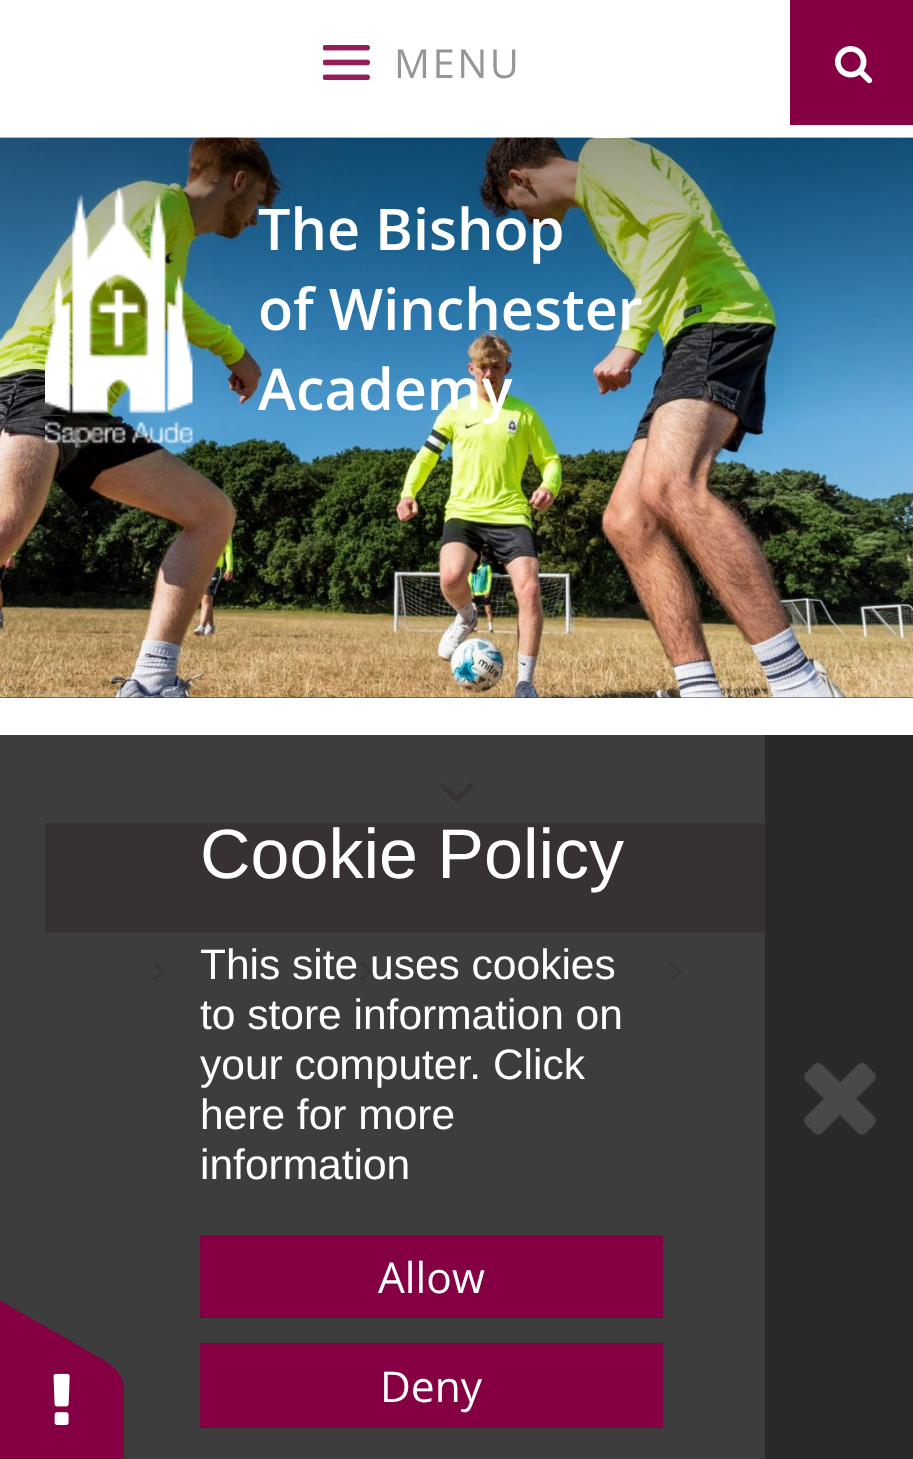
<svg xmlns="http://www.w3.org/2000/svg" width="913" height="1459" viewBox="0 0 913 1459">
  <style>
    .t1 { font: 40px Open Sans; letter-spacing: 2.5px; fill: #969696; }
    .t2 { font: 600 57.5px Open Sans; fill: #fff; }
    .t3 { font: 70px Liberation Sans; fill: #fff; }
    .t4 { font: 42.5px Liberation Sans; fill: #fff; }
    .t5 { font: 42.5px Open Sans; fill: #fff; }
  </style>
  <rect width="100%" height="100%" fill="#fff"/>
  <rect x="0" y="735" width="765" height="724" fill="#3d3d3d"/>
  <image x="323" y="45" width="47" height="35" href="images/1.png"/>
  <text x="394" y="78" class="t1">MENU</text>
  <rect x="790" y="0" width="123" height="125" fill="#840042"/>
  <image x="835" y="46" width="38" height="38" href="images/2.png"/>
  <rect x="0" y="697" width="913" height="1" fill="#840042"/>
  <image x="0" y="137" width="913" height="561" href="images/3.png"/>
  <image x="45" y="187" width="148" height="261" href="images/4.png"/>
  <text x="258" y="250" class="t2">The Bishop</text>
  <text x="258" y="330" class="t2">of Winchester</text>
  <text x="258" y="410" class="t2">Academy</text>
  <image x="440" y="782" width="34" height="21" href="images/5.png"/>
  <rect x="45" y="823" width="720" height="110" fill="#373034"/>
  <image x="152" y="961" width="13" height="20" href="images/6.png"/>
  <image x="360" y="961" width="12" height="20" href="images/7.png"/>
  <image x="670" y="961" width="12" height="20" href="images/7.png"/>
  <path d="M124 1392V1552C124 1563 120 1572 114 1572H-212C-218 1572-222 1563-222 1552V1392C-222 1381-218 1372-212 1372H114C120 1372 124 1381 124 1392Z" fill="#840042"/>
  <path d="M-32 1282L107 1362C116 1368 122 1376 119 1381L-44 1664C-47 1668-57 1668-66 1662L-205 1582C-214 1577-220 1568-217 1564L-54 1281C-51 1276-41 1277-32 1282Z" fill="#840042"/>
  <image x="53" y="1373" width="17" height="52" href="images/8.png"/>
  <text x="200" y="878" class="t3">Cookie Policy</text>
  <text x="200" y="979" class="t4">This site uses cookies</text>
  <text x="200" y="1029" class="t4">to store information on</text>
  <text x="200" y="1079" class="t4">your computer. Click</text>
  <text x="200" y="1129" class="t4">here for more</text>
  <text x="200" y="1179" class="t4">information</text>
  <rect x="200" y="1235" width="463" height="83" fill="#840042"/>
  <text x="378" y="1293" class="t5">Allow</text>
  <rect x="200" y="1343" width="463" height="85" fill="#840042"/>
  <text x="380" y="1402" class="t5">Deny</text>
  <rect x="765" y="735" width="148" height="724" fill="#292929"/>
  <image x="804" y="1063" width="72" height="72" href="images/9.png"/>
</svg>
